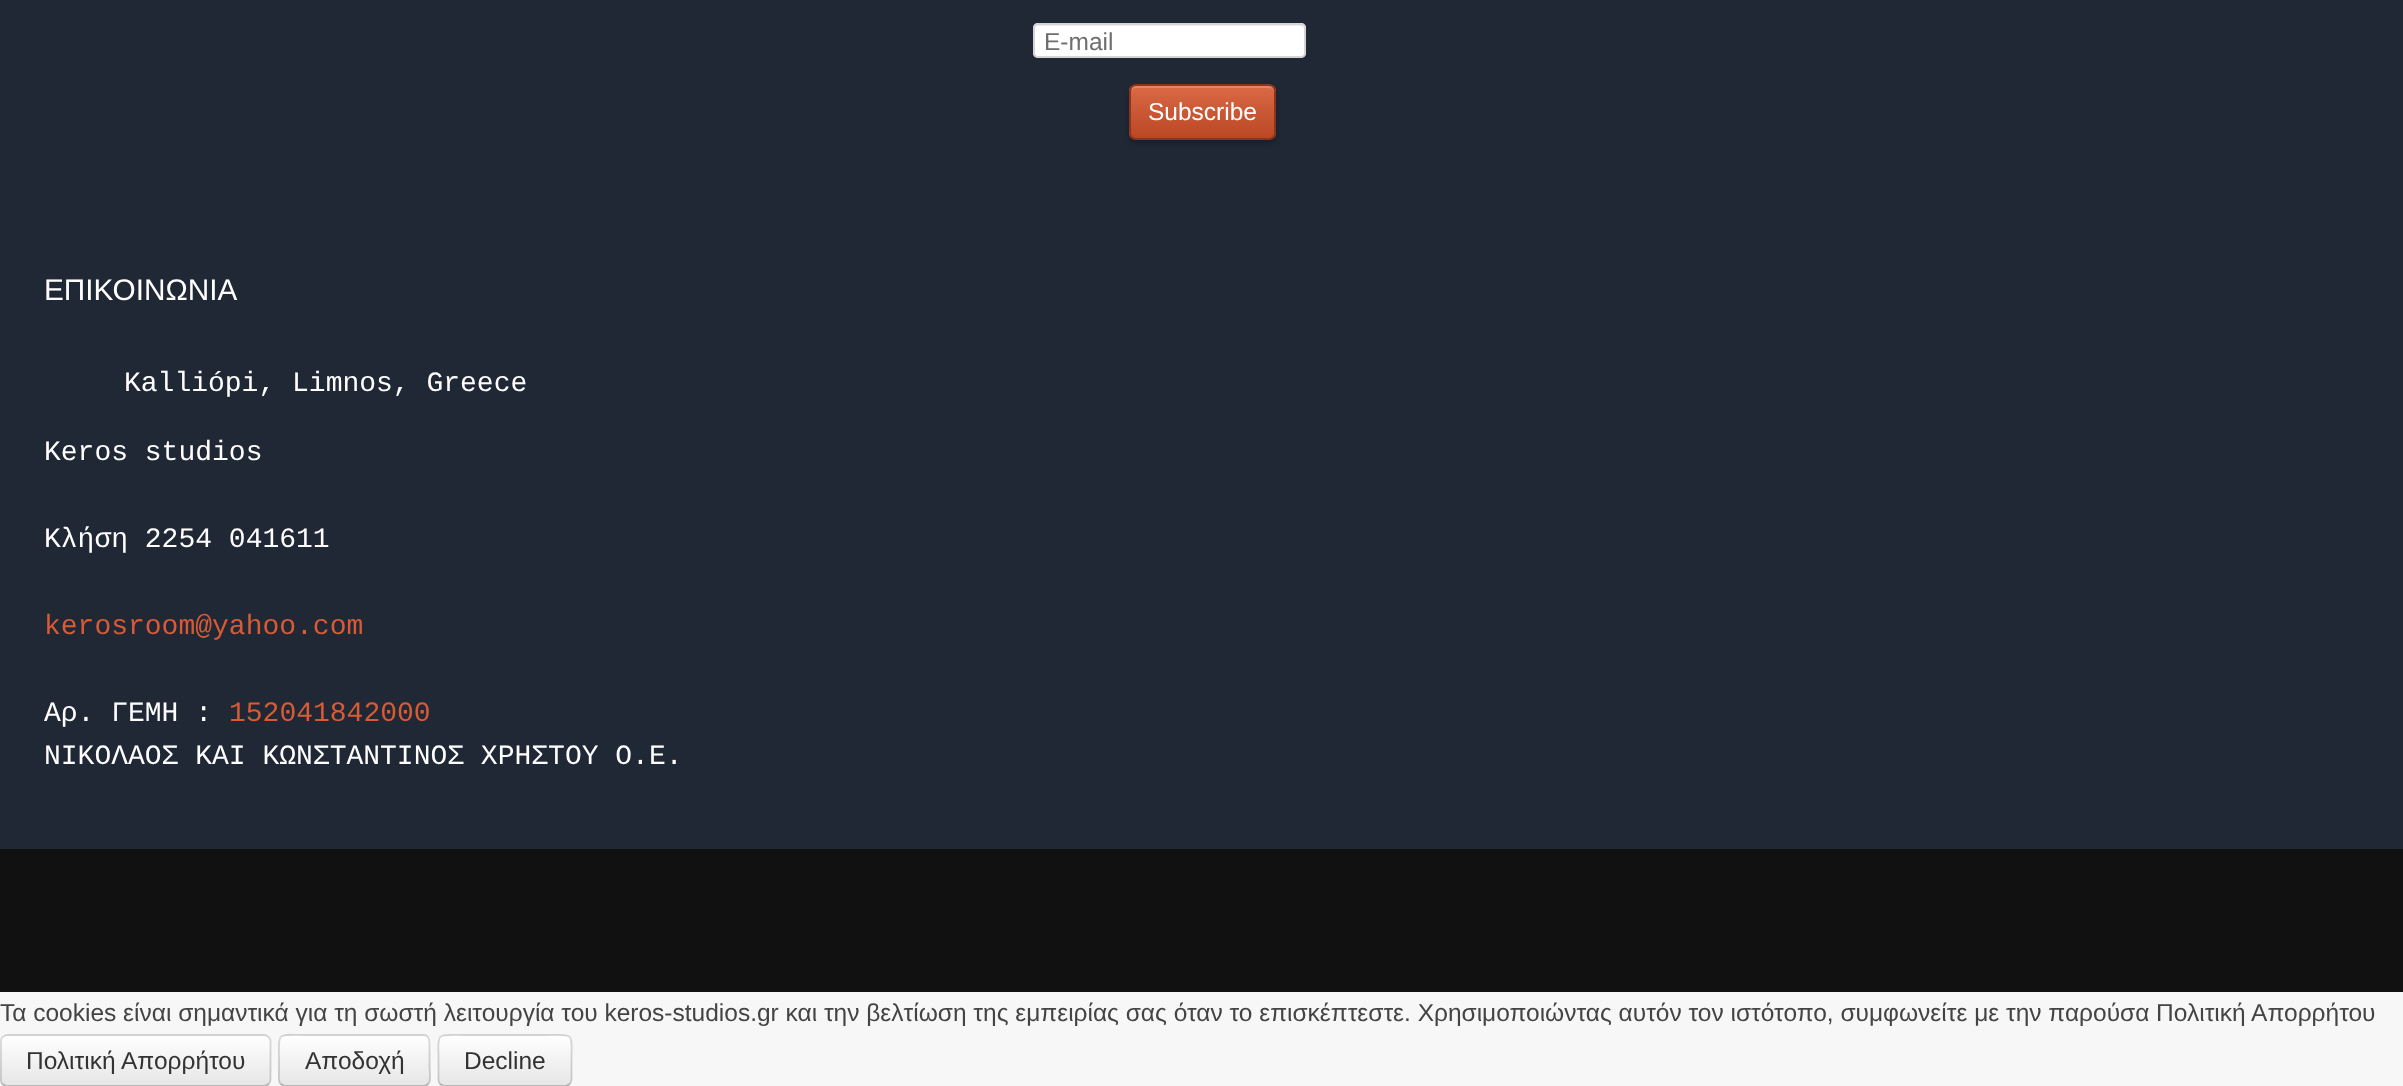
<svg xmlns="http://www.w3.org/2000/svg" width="2403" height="1086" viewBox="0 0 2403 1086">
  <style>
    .t1 { font: 24.5px Liberation Sans; fill: #6e6e6e; }
    .t2 { font: 24.5px Liberation Sans; fill: #fff; }
    .t3 { font: 29.75px Liberation Sans; fill: #fff; }
    .t4 { font: 28px Liberation Mono; fill: #fff; }
    .t5 { font: 28px Liberation Mono; fill: #d85b35; }
    .t6 { font: 24.5px Liberation Sans; fill: #444; }
    .t7 { font: 24.5px Liberation Sans; fill: #333; }
  </style>
  <defs>
    <clipPath id="clip1"><rect x="1129" y="84" width="147" height="56" rx="7"/></clipPath>
    <linearGradient id="g1" gradientUnits="userSpaceOnUse" x1="1202" y1="86" x2="1202" y2="138"><stop offset="0" stop-color="#db6946"/><stop offset="1" stop-color="#bb4724"/></linearGradient>
    <clipPath id="clip2"><rect x="0" y="1034" width="271" height="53" rx="7"/></clipPath>
    <linearGradient id="g2" gradientUnits="userSpaceOnUse" x1="136" y1="1036" x2="136" y2="1085"><stop offset="0" stop-color="#fff"/><stop offset="1" stop-color="#e6e6e6"/></linearGradient>
    <clipPath id="clip3"><rect x="278" y="1034" width="153" height="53" rx="7"/></clipPath>
    <linearGradient id="g3" gradientUnits="userSpaceOnUse" x1="354" y1="1036" x2="354" y2="1085"><stop offset="0" stop-color="#fff"/><stop offset="1" stop-color="#e6e6e6"/></linearGradient>
    <clipPath id="clip4"><rect x="438" y="1034" width="134" height="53" rx="7"/></clipPath>
    <linearGradient id="g4" gradientUnits="userSpaceOnUse" x1="505" y1="1036" x2="505" y2="1085"><stop offset="0" stop-color="#fff"/><stop offset="1" stop-color="#e6e6e6"/></linearGradient>
  </defs>
  <rect width="100%" height="100%" fill="#f7f7f7"/>
  <rect x="0" y="0" width="2403" height="849" fill="#202835"/>
  <rect x="1033" y="23" width="273" height="35" rx="5" fill="#fff"/>
  <path d="M1038 26H1300C1302 26 1304 28 1304 30C1304 27 1303 25 1300 25H1038C1035 25 1034 27 1034 30C1034 28 1036 26 1038 26Z" fill="#ececec"/>
  <rect x="1034" y="24" width="271" height="33" rx="4" fill="none" stroke="#d5d5d5" stroke-width="2"/>
  <text x="1044" y="50" class="t1">E-mail</text>
  <rect x="1129" y="88" width="147" height="56" rx="7" fill="#00000033" filter="blur(2.5px)"/>
  <g clip-path="url(#clip1)">
    <rect x="1129" y="86" width="147" height="52" fill="url(#g1)"/>
  </g>
  <path d="M1136 88H1269C1272 88 1274 90 1274 93V91C1274 88 1272 86 1269 86H1136C1134 86 1131 88 1131 90C1132 89 1134 88 1136 88Z" fill="#ffffff33"/>
  <rect x="1130" y="85" width="145" height="54" rx="6" fill="none" stroke="#8c351b" stroke-width="2"/>
  <text x="1148" y="120" class="t2">Subscribe</text>
  <text x="44" y="300" class="t3">ΕΠΙΚΟΙΝΩΝΙΑ</text>
  <text x="124" y="391" class="t4">Kalliópi, Limnos, Greece</text>
  <text x="44" y="460" class="t4">Keros studios</text>
  <text x="44" y="547" class="t4">Κλήση 2254 041611</text>
  <text x="44" y="634" class="t5">kerosroom@yahoo.com</text>
  <text x="44" y="721" class="t4">Αρ. ΓΕΜΗ :</text>
  <text x="229" y="721" class="t5">152041842000</text>
  <text x="44" y="764" class="t4">ΝΙΚΟΛΑΟΣ ΚΑΙ ΚΩΝΣΤΑΝΤΙΝΟΣ ΧΡΗΣΤΟΥ Ο.Ε.</text>
  <rect x="0" y="849" width="2403" height="143" fill="#111"/>
  <text x="0" y="1021" class="t6">Τα cookies είναι σημαντικά για τη σωστή λειτουργία του keros-studios.gr και την βελτίωση της εμπειρίας σας όταν το επισκέπτεστε. Χρησιμοποιώντας αυτόν τον ιστότοπο, συμφωνείτε με την παρούσα Πολιτική Απορρήτου</text>
  <g clip-path="url(#clip2)">
    <rect x="0" y="1036" width="271" height="49" fill="url(#g2)"/>
  </g>
  <path d="M268.5 1084C267.5 1085 266 1086 264 1086H7C5.5 1086 4 1085 2.5 1084" fill="none" stroke="#00000040" stroke-width="1.8"/>
  <path d="M2.5 1084C1.5 1083 1 1081.5 1 1080V1041C1 1039.5 1.5 1038 2.5 1037C4 1036 5.5 1035 7 1035H264C266 1035 267.5 1036 268.5 1037C269.5 1038 270.5 1039.5 270.5 1041V1080C270.5 1081.5 269.5 1083 268.5 1084" fill="none" stroke="#00000026" stroke-width="1.8"/>
  <text x="26" y="1069" class="t7">Πολιτική Απορρήτου</text>
  <g clip-path="url(#clip3)">
    <rect x="278" y="1036" width="153" height="49" fill="url(#g3)"/>
  </g>
  <path d="M428 1084C426.5 1085 425 1086 423.5 1086H285C283.5 1086 282 1085 281 1084" fill="none" stroke="#00000040" stroke-width="1.8"/>
  <path d="M281 1084C278 1081.5 279 1076.5 279 1073.5V1060.5C279 1030 275.5 1035 308.5 1035H423.5C430.5 1035 429.5 1043 429.5 1047.5V1067C429.5 1071 431.5 1080.5 428 1084" fill="none" stroke="#00000026" stroke-width="1.8"/>
  <text x="305" y="1069" class="t7">Αποδοχή</text>
  <g clip-path="url(#clip4)">
    <rect x="438" y="1036" width="134" height="49" fill="url(#g4)"/>
  </g>
  <path d="M569.5 1084C568.5 1085 567 1086 565 1086H444.5C443 1086 441.5 1085 440 1084" fill="none" stroke="#00000040" stroke-width="1.8"/>
  <path d="M440 1084C437.5 1081.5 438.5 1076.5 438.5 1073.5V1060.5C438.5 1031.5 434.5 1035 464.5 1035H545C575.5 1035 571.5 1031.5 571.5 1060.5V1073.5C571.5 1076.5 572.5 1081.5 569.5 1084" fill="none" stroke="#00000026" stroke-width="1.8"/>
  <text x="464" y="1069" class="t7">Decline</text>
</svg>
